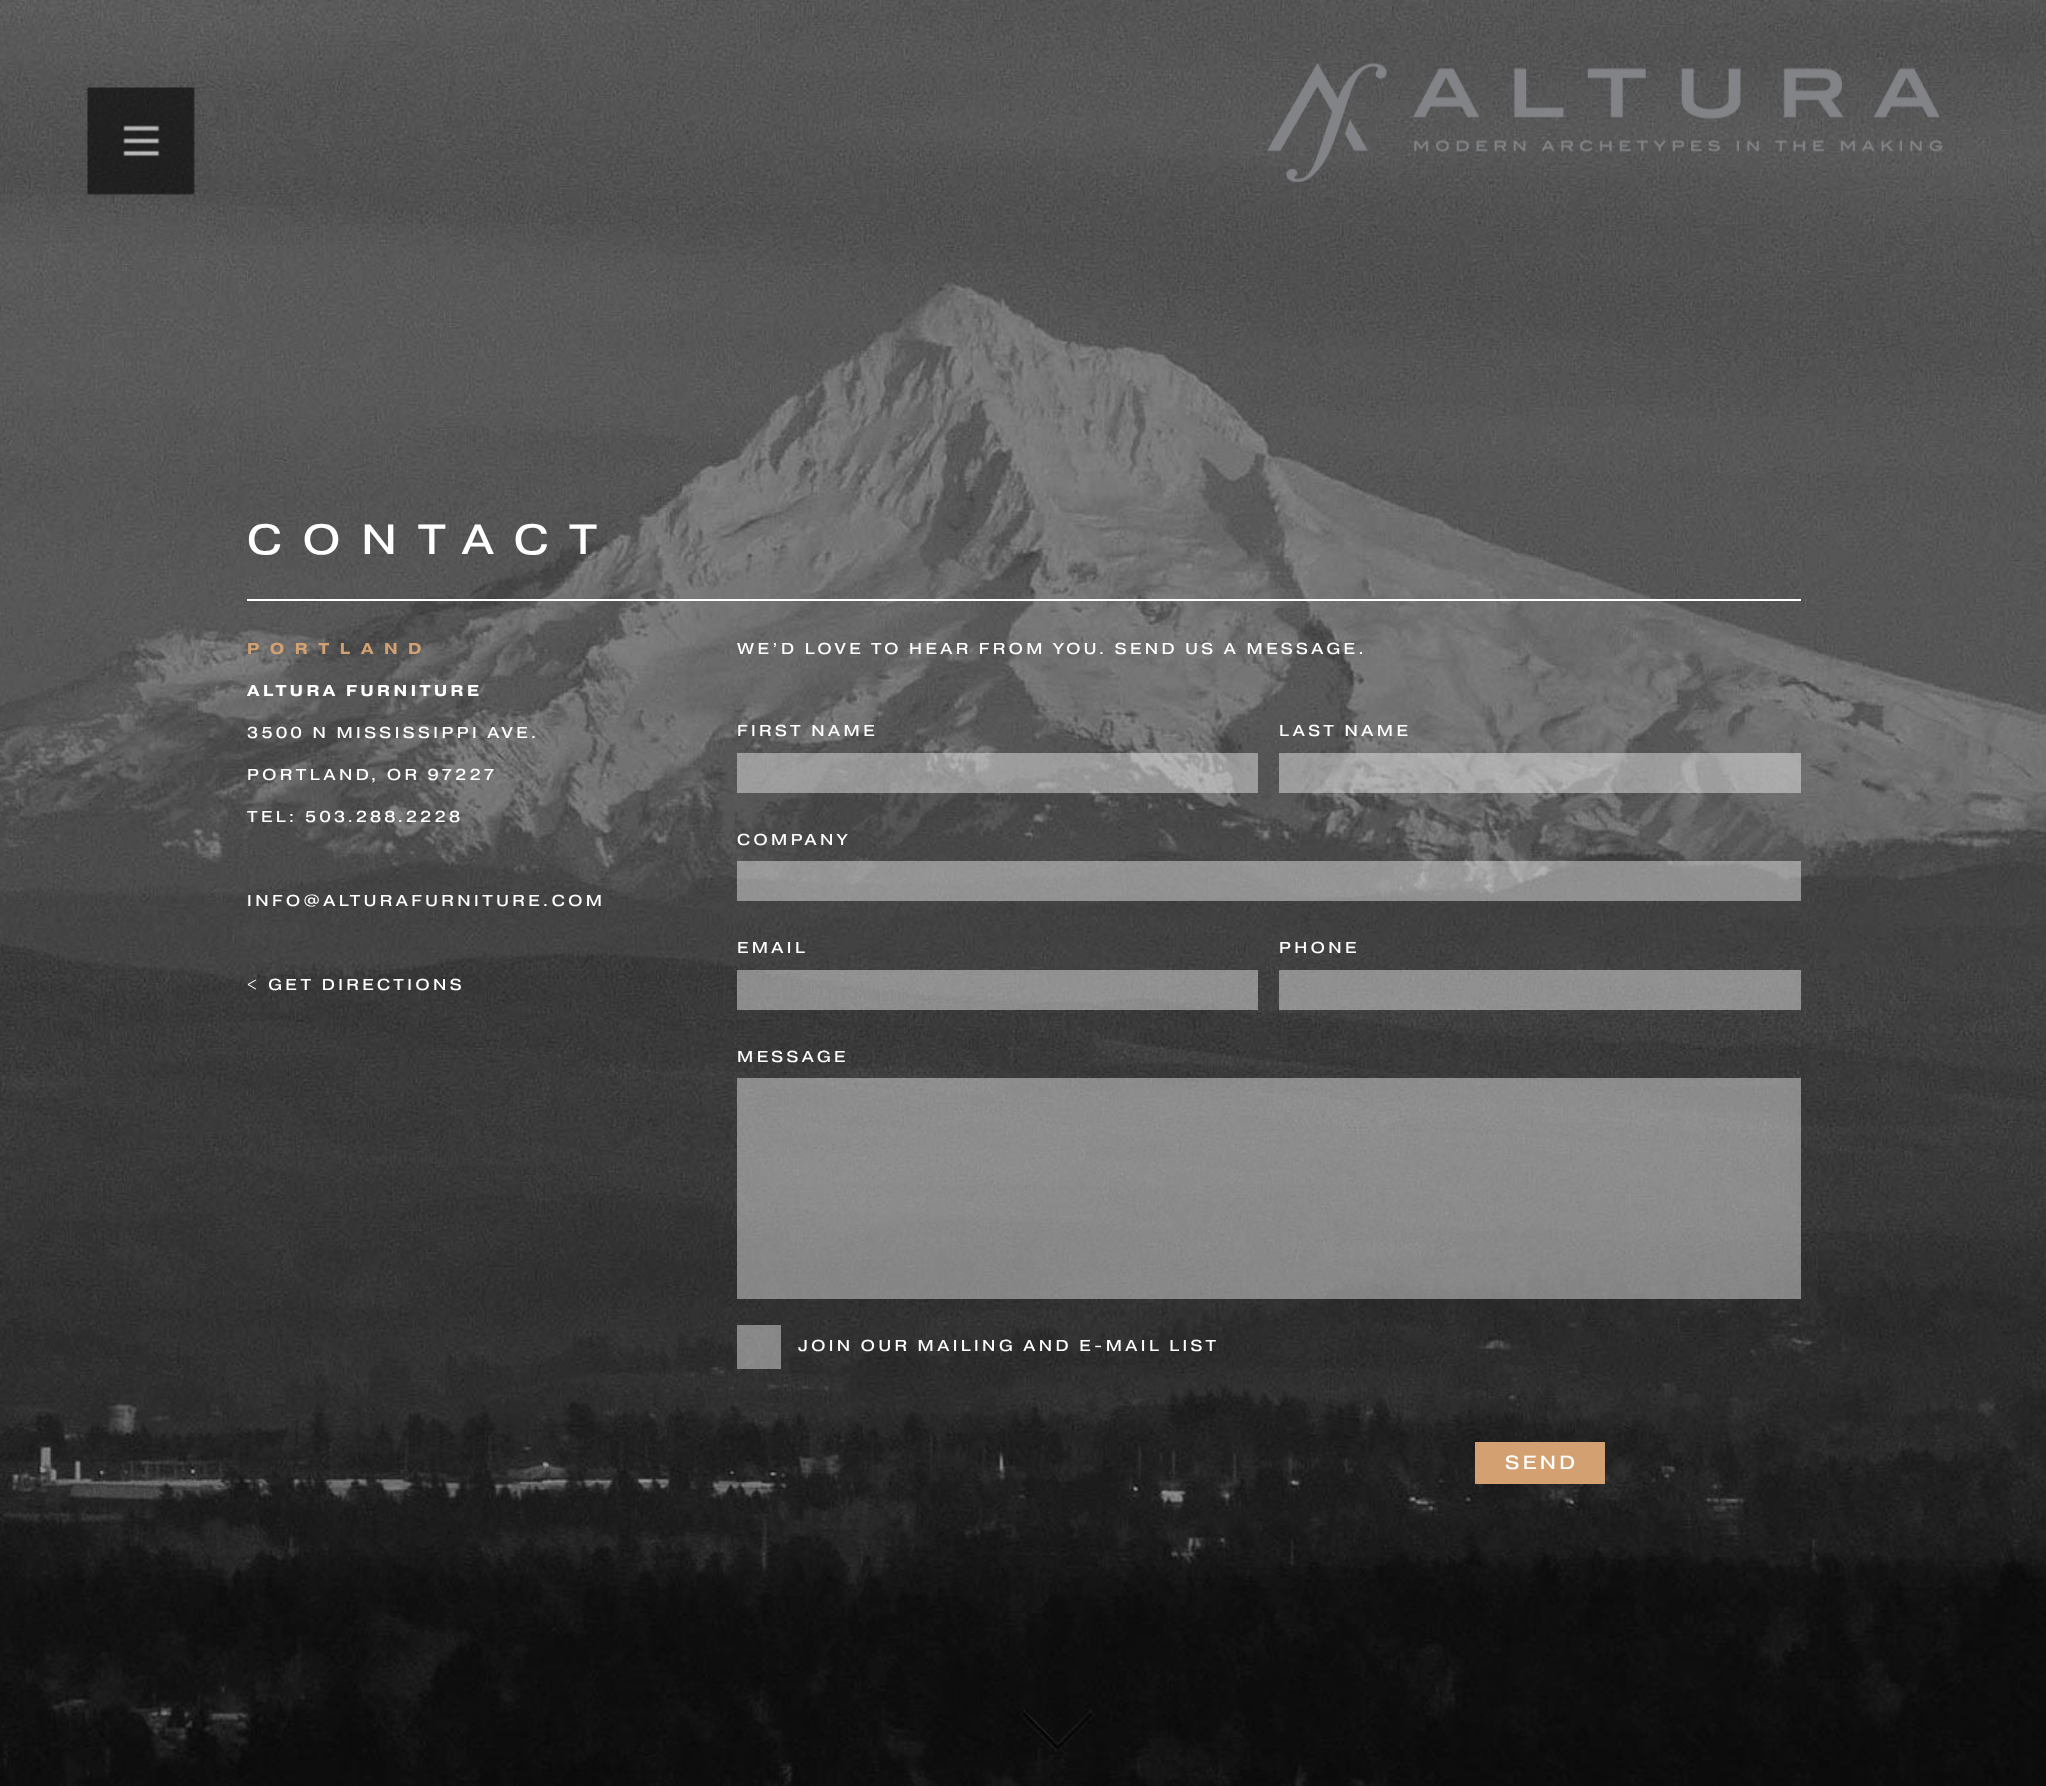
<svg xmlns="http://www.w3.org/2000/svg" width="2046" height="1786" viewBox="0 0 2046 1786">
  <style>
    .t1 { font: 42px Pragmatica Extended; letter-spacing: 21px; fill: #fff; }
    .t2 { font: bold 15.75px Pragmatica Extended; letter-spacing: 10.5px; fill: #d3a171; }
    .t3 { font: bold 15.75px Pragmatica Extended; letter-spacing: 3.5px; fill: #fff; }
    .t4 { font: 15.75px Pragmatica Extended; letter-spacing: 3.5px; fill: #fff; }
    .t5 { font: 19px Pragmatica Extended; letter-spacing: 3.5px; fill: #fff; }
  </style>
  <rect width="100%" height="100%" fill="#fff"/>
  <image x="0" y="0" width="2046" height="1786" href="images/2.png"/>
  <image x="87" y="87" width="108" height="108" href="images/1.png"/>
  <image x="1267" y="62" width="676" height="120" href="images/3.png"/>
  <rect x="247" y="599" width="1554" height="2" fill="#fff"/>
  <text x="247" y="554" class="t1">CONTACT</text>
  <text x="247" y="654" class="t2">PORTLAND</text>
  <text x="247" y="696" class="t3">ALTURA FURNITURE</text>
  <text x="247" y="738" class="t4">3500 N MISSISSIPPI AVE.</text>
  <text x="247" y="780" class="t4">PORTLAND, OR 97227</text>
  <text x="247" y="822" class="t4">TEL: 503.288.2228</text>
  <text x="247" y="906" class="t4">INFO@ALTURAFURNITURE.COM</text>
  <text x="247" y="990" class="t4">&lt; GET DIRECTIONS</text>
  <text x="737" y="654" class="t4">WE’D LOVE TO HEAR FROM YOU. SEND US A MESSAGE.</text>
  <text x="737" y="736" class="t4">FIRST NAME</text>
  <rect x="737" y="753" width="521" height="40" fill="#ffffff6b"/>
  <text x="1279" y="736" class="t4">LAST NAME</text>
  <rect x="1279" y="753" width="522" height="40" fill="#ffffff6b"/>
  <text x="737" y="845" class="t4">COMPANY</text>
  <rect x="737" y="861" width="1064" height="40" fill="#ffffff6b"/>
  <text x="737" y="953" class="t4">EMAIL</text>
  <rect x="737" y="970" width="521" height="40" fill="#ffffff6b"/>
  <text x="1279" y="953" class="t4">PHONE</text>
  <rect x="1279" y="970" width="522" height="40" fill="#ffffff6b"/>
  <text x="737" y="1062" class="t4">MESSAGE</text>
  <rect x="737" y="1078" width="1064" height="221" fill="#ffffff6b"/>
  <rect x="737" y="1325" width="44" height="44" fill="#ffffff6b"/>
  <text x="798" y="1351" class="t4">JOIN OUR MAILING AND E-MAIL LIST</text>
  <rect x="1475" y="1442" width="130" height="42" fill="#d3a171"/>
  <text x="1505" y="1469" class="t5">SEND</text>
</svg>
